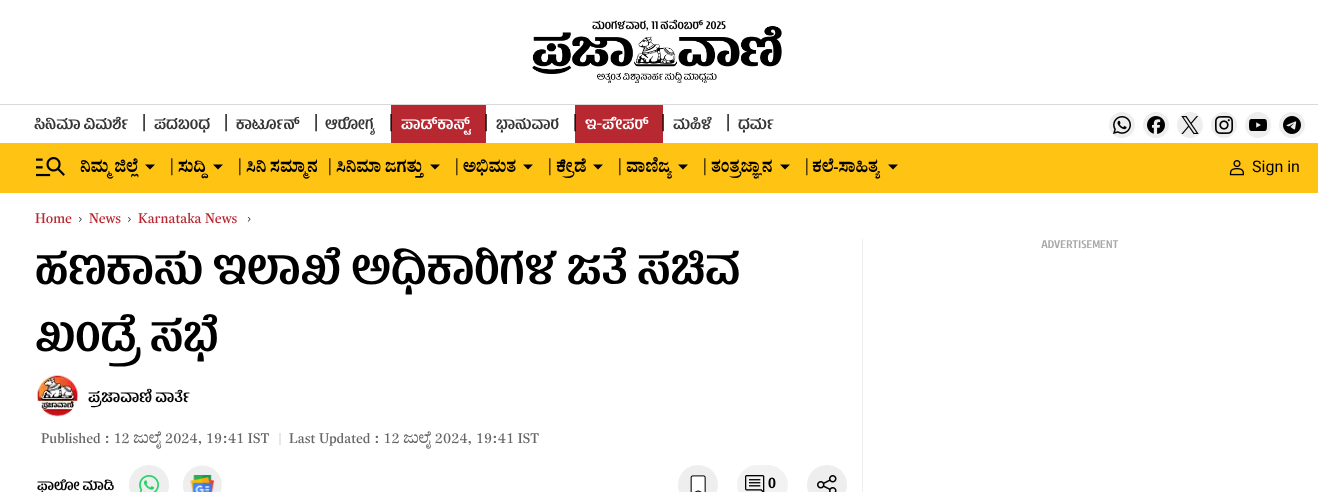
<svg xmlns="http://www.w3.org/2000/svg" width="1318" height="492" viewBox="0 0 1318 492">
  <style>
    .t1 { font: 600 12px 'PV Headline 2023'; fill: #000; }
    .t2 { font: 600 16px 'PV Headline 2023'; fill: #353536; }
    .t3 { font: bold 16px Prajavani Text; fill: #000; }
    .t4 { font: 600 16px 'PV Headline 2023'; fill: #fff; }
    .t5 { font: 600 16px Prajavani Text; fill: #000; }
    .t6 { font: 16px Roboto; fill: #000; }
    .t7 { font: 14px Prajavani Text; fill: #b82831; }
    .t8 { font: 600 12px 'PV Headline 2023'; fill: #a9a9a9; }
    .t9 { font: 600 48px 'PV Headline 2023'; fill: #000; }
    .t10 { font: 600 16px 'PV Headline 2023'; fill: #000; }
    .t11 { font: 14px Prajavani Text; fill: #666; }
    .t12 { font: 600 14px 'PV Headline 2023'; fill: #000; }
  </style>
  <rect width="100%" height="100%" fill="#fff"/>
  <text x="592" y="29" class="t1">ಮಂಗಳವಾರ, 11 ನವೆಂಬರ್ 2025</text>
  <image x="532" y="26" width="250" height="57" href="images/1.png"/>
  <rect x="0" y="104" width="1318" height="1" fill="#d9d9d9"/>
  <text x="34" y="129" class="t2">ಸಿನಿಮಾ ವಿಮರ್ಶೆ</text>
  <text x="141" y="127" class="t3">|</text>
  <text x="154" y="129" class="t2">ಪದಬಂಧ</text>
  <text x="223" y="127" class="t3">|</text>
  <text x="236" y="129" class="t2">ಕಾರ್ಟೂನ್</text>
  <text x="313" y="127" class="t3">|</text>
  <text x="325" y="129" class="t2">ಆರೋಗ್ಯ</text>
  <rect x="391" y="105" width="95" height="38" fill="#b82831"/>
  <text x="388" y="127" class="t3">|</text>
  <text x="401" y="129" class="t4">ಪಾಡ್‌ಕಾಸ್ಟ್</text>
  <text x="483" y="127" class="t3">|</text>
  <text x="496" y="129" class="t2">ಭಾನುವಾರ</text>
  <rect x="575" y="105" width="88" height="38" fill="#b82831"/>
  <text x="572" y="127" class="t3">|</text>
  <text x="585" y="129" class="t4">ಇ-ಪೇಪರ್</text>
  <text x="660" y="127" class="t3">|</text>
  <text x="673" y="129" class="t2">ಮಹಿಳೆ</text>
  <text x="725" y="127" class="t3">|</text>
  <text x="738" y="129" class="t2">ಧರ್ಮ</text>
  <circle cx="1122" cy="125" r="13" fill="#eee"/>
  <image x="1113" y="116" width="18" height="18" href="images/2.png"/>
  <circle cx="1156" cy="125" r="13" fill="#eee"/>
  <image x="1147" y="116" width="18" height="18" href="images/3.png"/>
  <circle cx="1190" cy="125" r="13" fill="#eee"/>
  <image x="1181" y="116" width="18" height="18" href="images/4.png"/>
  <circle cx="1224" cy="125" r="13" fill="#eee"/>
  <image x="1215" y="116" width="18" height="18" href="images/5.png"/>
  <circle cx="1258" cy="125" r="13" fill="#eee"/>
  <image x="1249" y="119" width="18" height="12" href="images/6.png"/>
  <circle cx="1292" cy="125" r="13" fill="#eee"/>
  <image x="1283" y="116" width="18" height="18" href="images/7.png"/>
  <rect x="0" y="143" width="1318" height="50" fill="#ffc314"/>
  <image x="36" y="157" width="29" height="20" href="images/8.png"/>
  <text x="80" y="172" class="t5">ನಿಮ್ಮ ಜಿಲ್ಲೆ</text>
  <path d="M150 169.5L145 164.5H155Z" fill="#000"/>
  <text x="169" y="171" class="t5">|</text>
  <text x="178" y="172" class="t5">ಸುದ್ದಿ</text>
  <path d="M218 169.5L213 164.5H223Z" fill="#000"/>
  <text x="237" y="171" class="t5">|</text>
  <text x="246" y="172" class="t5">ಸಿನಿ ಸಮ್ಮಾನ</text>
  <text x="327" y="171" class="t5">|</text>
  <text x="336" y="172" class="t5">ಸಿನಿಮಾ ಜಗತ್ತು</text>
  <path d="M435 169.5L430 164.5H440Z" fill="#000"/>
  <text x="454" y="171" class="t5">|</text>
  <text x="463" y="172" class="t5">ಅಭಿಮತ</text>
  <path d="M528 169.5L523 164.5H533Z" fill="#000"/>
  <text x="547" y="171" class="t5">|</text>
  <text x="556" y="172" class="t5">ಕ್ರೀಡೆ</text>
  <path d="M598 169.5L593 164.5H603Z" fill="#000"/>
  <text x="617" y="171" class="t5">|</text>
  <text x="626" y="172" class="t5">ವಾಣಿಜ್ಯ</text>
  <path d="M683 169.5L678 164.5H688Z" fill="#000"/>
  <text x="702" y="171" class="t5">|</text>
  <text x="711" y="172" class="t5">ತಂತ್ರಜ್ಞಾನ</text>
  <path d="M785 169.5L780 164.5H790Z" fill="#000"/>
  <text x="804" y="171" class="t5">|</text>
  <text x="812" y="172" class="t5">ಕಲೆ-ಸಾಹಿತ್ಯ</text>
  <path d="M893 169.5L888 164.5H898Z" fill="#000"/>
  <image x="1229" y="160" width="15" height="16" href="images/9.png"/>
  <text x="1252" y="172" class="t6">Sign in</text>
  <text x="35" y="223" class="t7">Home</text>
  <image x="79" y="217" width="3" height="5" href="images/10.png"/>
  <text x="89" y="223" class="t7">News</text>
  <image x="128" y="217" width="3" height="5" href="images/11.png"/>
  <text x="138" y="223" class="t7">Karnataka News</text>
  <image x="247" y="217" width="4" height="5" href="images/12.png"/>
  <text x="1041" y="248" class="t8">ADVERTISEMENT</text>
  <text x="35" y="284" class="t9">ಹಣಕಾಸು ಇಲಾಖೆ ಅಧಿಕಾರಿಗಳ ಜತೆ ಸಚಿವ</text>
  <text x="35" y="351" class="t9">ಖಂಡ್ರೆ ಸಭೆ</text>
  <image x="37" y="375" width="42" height="42" href="images/13.png"/>
  <text x="88" y="402" class="t10">ಪ್ರಜಾವಾಣಿ ವಾರ್ತೆ</text>
  <text x="41" y="443" class="t11">Published : 12 ಜುಲೈ 2024, 19:41 IST</text>
  <rect x="279" y="433" width="2" height="12" fill="#e8e8e8"/>
  <text x="289" y="443" class="t11">Last Updated : 12 ಜುಲೈ 2024, 19:41 IST</text>
  <text x="37" y="490" class="t12">ಫಾಲೋ ಮಾಡಿ</text>
  <circle cx="149" cy="485" r="20" fill="#eee"/>
  <image x="139" y="475" width="20" height="17" href="images/14.png"/>
  <image x="183" y="465" width="39" height="27" href="images/15.png"/>
  <circle cx="698" cy="485" r="20" fill="#eee"/>
  <image x="690" y="475" width="16" height="17" href="images/16.png"/>
  <rect x="737.5" y="465.5" width="50" height="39" rx="19.5" fill="#f2f2f2" stroke="#f2f2f2"/>
  <image x="745" y="475" width="20" height="17" href="images/17.png"/>
  <text x="768" y="488" class="t10">0</text>
  <circle cx="827" cy="485" r="20" fill="#eee"/>
  <image x="817" y="475" width="20" height="17" href="images/18.png"/>
  <rect x="862" y="239" width="1" height="253" fill="#efeff0"/>
</svg>
